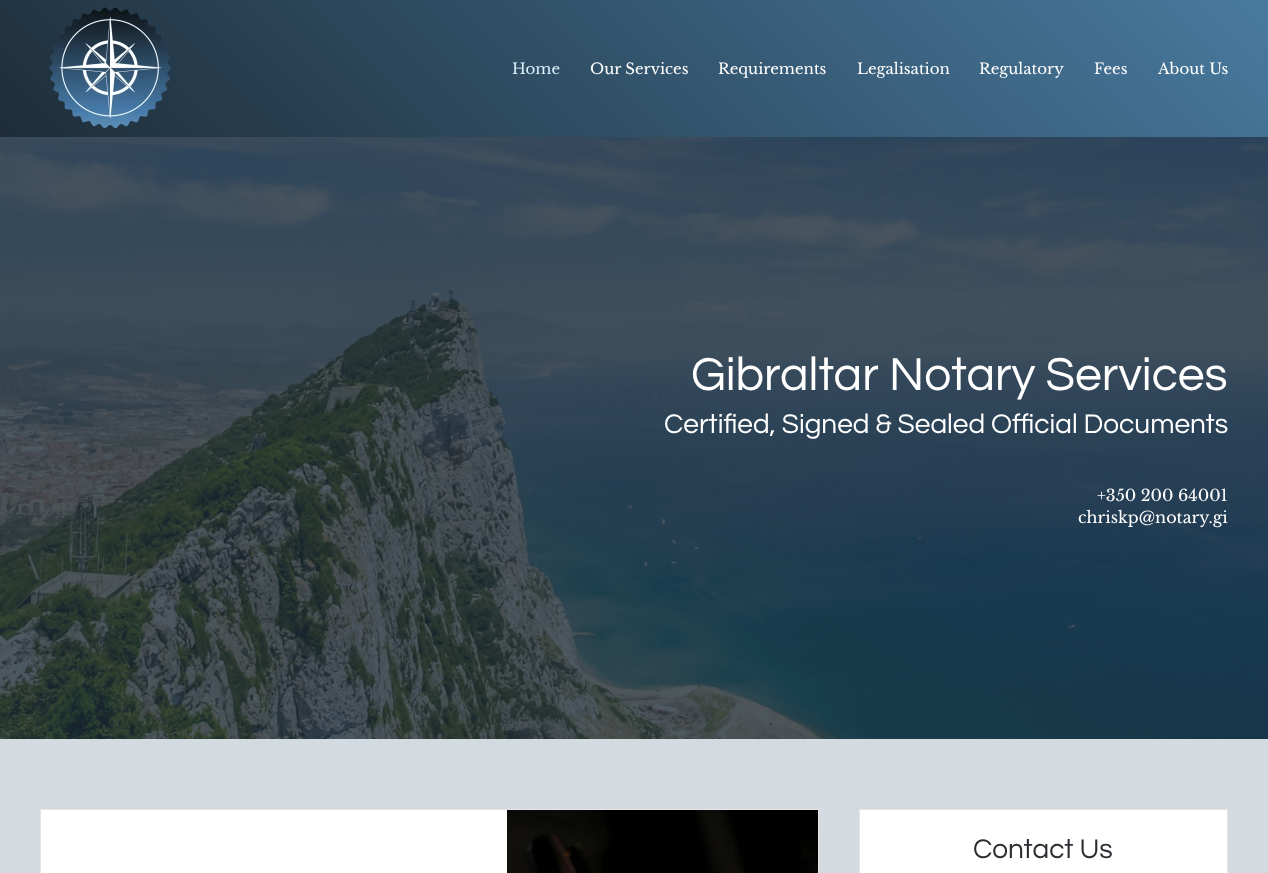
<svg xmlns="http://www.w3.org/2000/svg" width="1268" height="873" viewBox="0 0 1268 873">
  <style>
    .t1 { font: 15px Libre Baskerville; fill: #def0fb; }
    .t2 { font: 15px Libre Baskerville; fill: #fff; }
    .t3 { font: 48px Questrial; fill: #fff; }
    .t4 { font: 28px Questrial; fill: #fff; }
    .t5 { font: 16px Libre Baskerville; fill: #fff; }
    .t6 { font: 28px Questrial; fill: #2d2e33; }
  </style>
  <defs>
    <linearGradient id="g1" gradientUnits="userSpaceOnUse" x1="283" y1="420" x2="985" y2="-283"><stop offset="0" stop-color="#1e2d39"/><stop offset="1" stop-color="#487a9f"/></linearGradient>
  </defs>
  <rect width="100%" height="100%" fill="#d3dae0"/>
  <rect x="0" y="0" width="1268" height="137" fill="url(#g1)"/>
  <image x="49" y="7" width="122" height="122" href="images/1.png"/>
  <text x="512" y="74" class="t1">Home</text>
  <text x="590" y="74" class="t2">Our Services</text>
  <text x="718" y="74" class="t2">Requirements</text>
  <text x="857" y="74" class="t2">Legalisation</text>
  <text x="979" y="74" class="t2">Regulatory</text>
  <text x="1094" y="74" class="t2">Fees</text>
  <text x="1158" y="74" class="t2">About Us</text>
  <image x="0" y="137" width="1268" height="602" href="images/2.png"/>
  <text x="691" y="390" class="t3">Gibraltar Notary Services</text>
  <text x="664" y="433" class="t4">Certified, Signed &amp; Sealed Official Documents</text>
  <text x="1097" y="501" class="t5">+350 200 64001</text>
  <text x="1078" y="523" class="t5">chriskp@notary.gi</text>
  <rect x="41" y="810" width="466" height="63" fill="#fff"/>
  <rect x="40.5" y="809.5" width="778" height="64" fill="none" stroke="#e5e5e7"/>
  <image x="507" y="810" width="311" height="63" href="images/3.png"/>
  <rect x="859.5" y="809.5" width="368" height="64" fill="#fff" stroke="#e5e5e7"/>
  <text x="973" y="858" class="t6">Contact Us</text>
</svg>
